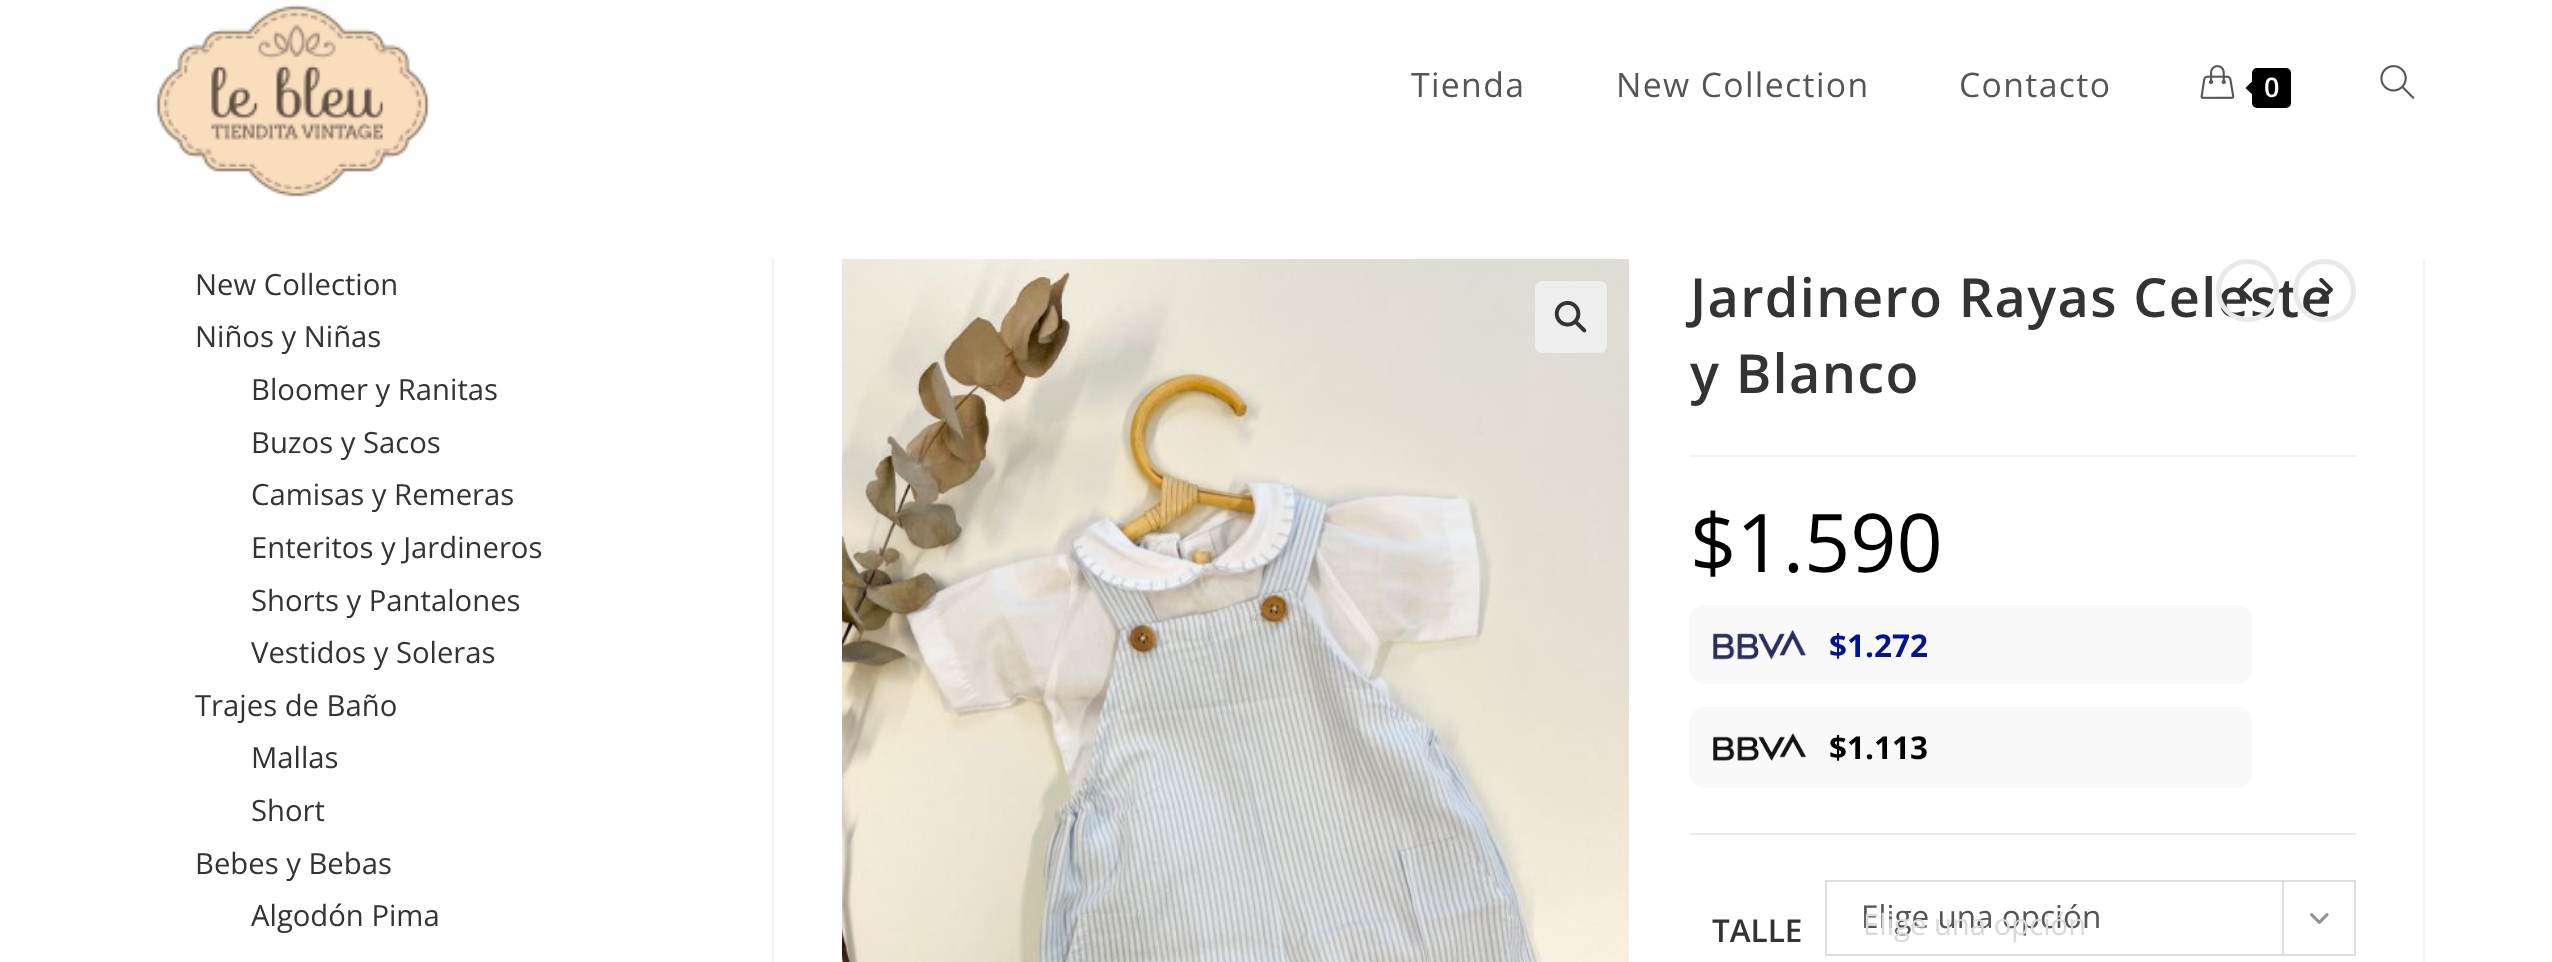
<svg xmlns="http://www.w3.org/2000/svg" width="2552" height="962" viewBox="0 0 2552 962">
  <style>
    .t1 { font: 33.75px Open Sans; letter-spacing: 1.35px; fill: #555; }
    .t2 { font: 600 27px Open Sans; fill: #fff; }
    .t3 { font: 29.25px Open Sans; fill: #333; }
    .t4 { font: 600 54px Open Sans; letter-spacing: 1.35px; fill: #333; }
    .t5 { font: 81px Open Sans; fill: #000; }
    .t6 { font: bold 31.5px Open Sans; fill: #001491; }
    .t7 { font: bold 31.5px Open Sans; fill: #000; }
    .t8 { font: 600 31.5px Open Sans; fill: #333; }
    .t9 { font: 31.5px Open Sans; fill: #555; }
    .t10 { font: 29.25px Open Sans; fill: #d9d9d9; }
  </style>
  <rect width="100%" height="100%" fill="#fff"/>
  <image x="155" y="4" width="275" height="193" href="images/1.png"/>
  <text x="1411" y="97" class="t1">Tienda</text>
  <text x="1616" y="97" class="t1">New Collection</text>
  <text x="1959" y="97" class="t1">Contacto</text>
  <image x="2200" y="65" width="35" height="34" href="images/2.png"/>
  <rect x="2252" y="68" width="39" height="40" rx="5" fill="#000"/>
  <path d="M2257 76.5V99L2245.5 88Z" fill="#000"/>
  <text x="2264" y="97" class="t2">0</text>
  <image x="2380" y="65" width="35" height="34" href="images/3.png"/>
  <text x="195" y="295" class="t3">New Collection</text>
  <text x="195" y="347" class="t3">Niños y Niñas</text>
  <text x="251" y="400" class="t3">Bloomer y Ranitas</text>
  <text x="251" y="453" class="t3">Buzos y Sacos</text>
  <text x="251" y="505" class="t3">Camisas y Remeras</text>
  <text x="251" y="558" class="t3">Enteritos y Jardineros</text>
  <text x="251" y="611" class="t3">Shorts y Pantalones</text>
  <text x="251" y="663" class="t3">Vestidos y Soleras</text>
  <text x="195" y="716" class="t3">Trajes de Baño</text>
  <text x="251" y="768" class="t3">Mallas</text>
  <text x="251" y="821" class="t3">Short</text>
  <text x="195" y="874" class="t3">Bebes y Bebas</text>
  <text x="251" y="926" class="t3">Algodón Pima</text>
  <rect x="2423" y="259" width="2" height="703" fill="#f1f1f1"/>
  <rect x="772" y="259" width="2" height="703" fill="#f1f1f1"/>
  <image x="842" y="259" width="787" height="703" href="images/4.png"/>
  <rect x="1535" y="281" width="72" height="72" rx="7" fill="#eee"/>
  <image x="1554" y="300" width="33" height="33" href="images/5.png"/>
  <text x="1690" y="317" class="t4">Jardinero Rayas Celeste</text>
  <circle cx="2247.5" cy="290.5" r="29" fill="none" stroke="#e9e9e9" stroke-width="5"/>
  <image x="2238" y="277" width="15" height="25" href="images/6.png"/>
  <circle cx="2324.5" cy="290.5" r="29" fill="none" stroke="#e9e9e9" stroke-width="5"/>
  <image x="2319" y="277" width="14" height="23" href="images/7.png"/>
  <rect x="1690" y="455" width="666" height="2" fill="#f1f1f1"/>
  <text x="1690" y="393" class="t4">y Blanco</text>
  <text x="1690" y="572" class="t5">$1.590</text>
  <rect x="1690" y="605" width="562" height="79" rx="14" fill="#f9f9f9"/>
  <image x="1713" y="630" width="93" height="30" href="images/8.png"/>
  <text x="1829" y="657" class="t6">$1.272</text>
  <rect x="1690" y="707" width="562" height="81" rx="14" fill="#f9f9f9"/>
  <image x="1713" y="733" width="93" height="28" href="images/9.png"/>
  <text x="1829" y="759" class="t7">$1.113</text>
  <rect x="1690" y="833" width="666" height="2" fill="#eaeaea"/>
  <text x="1712" y="942" class="t8">TALLE</text>
  <rect x="1826" y="881" width="529" height="74" fill="none" stroke="#ddd" stroke-width="2"/>
  <text x="1861" y="928" class="t9">Elige una opción</text>
  <rect x="2282" y="882" width="2" height="72" fill="#ddd"/>
  <image x="2310" y="913" width="19" height="11" href="images/10.png"/>
  <text x="1863" y="935" class="t10">Elige una opción</text>
</svg>
